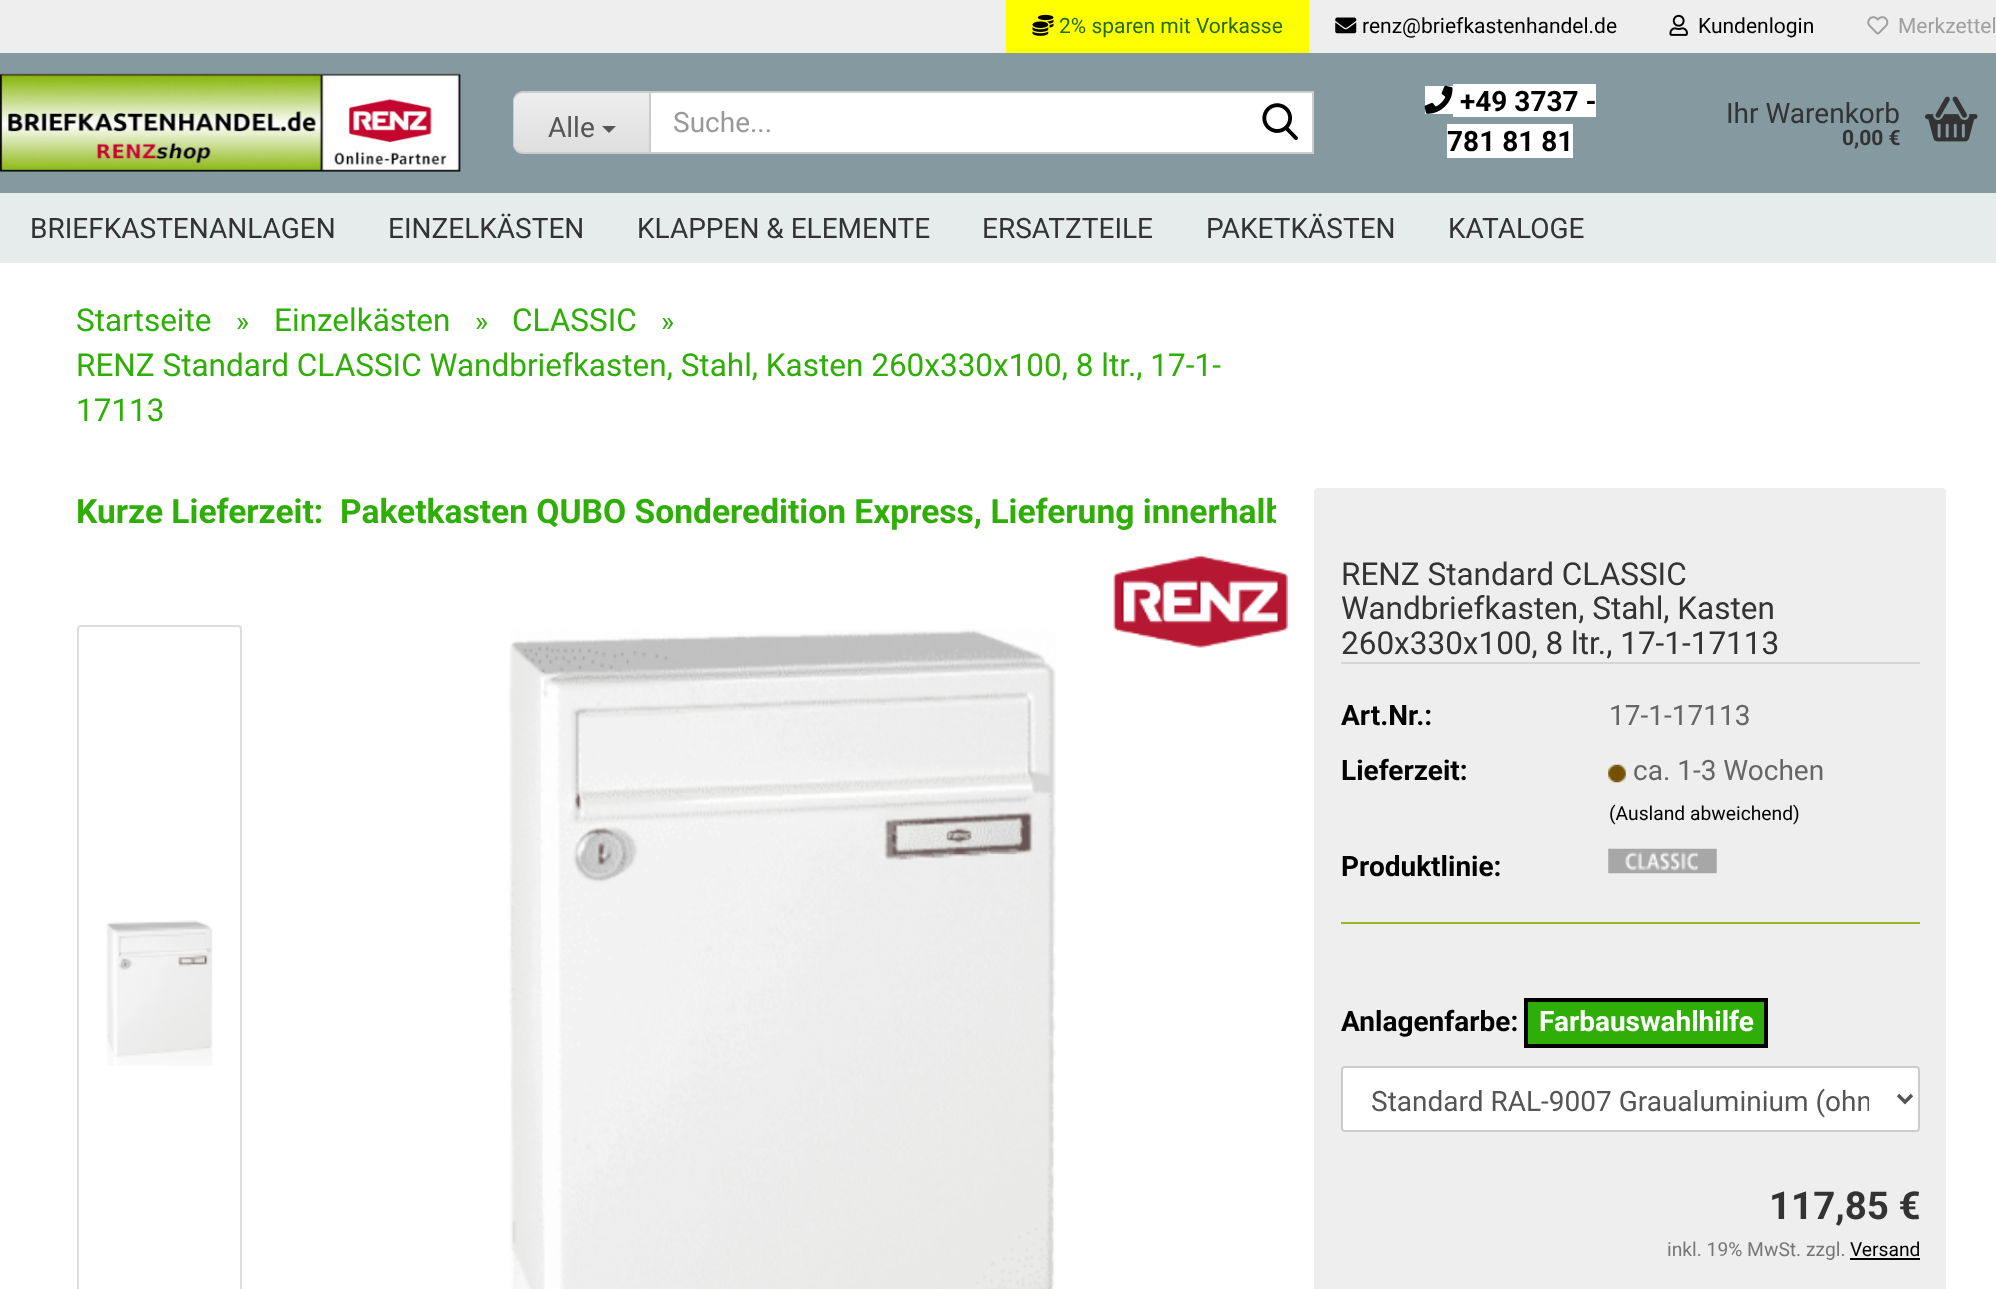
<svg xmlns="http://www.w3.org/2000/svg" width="1996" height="1289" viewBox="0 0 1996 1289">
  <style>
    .t1 { font: 21px Roboto; fill: #236b0c; }
    .t2 { font: 21px Roboto; fill: #000; }
    .t3 { font: 21px Roboto; fill: #9f9f9f; }
    .t4 { font: 28px Roboto; fill: #555; }
    .t5 { font: 28px Roboto; fill: #999; }
    .t6 { font: bold 28px Roboto; fill: #000; }
    .t7 { font: 28px Roboto; fill: #333; }
    .t8 { font: bold 21px Roboto; fill: #333; }
    .t9 { font: 31.5px Roboto; fill: #2eae06; }
    .t10 { font: 28px Roboto; fill: #2eae06; }
    .t11 { font: bold 33.6px Roboto; fill: #2eae06; }
    .t12 { font: 31.5px Roboto; fill: #333; }
    .t13 { font: 28px Roboto; fill: #666; }
    .t14 { font: 19.25px Roboto; fill: #000; }
    .t15 { font: bold 28px Roboto; fill: #fff; }
    .t16 { font: bold 38.5px Roboto; fill: #333; }
    .t17 { font: 19.25px Roboto; fill: #777; }
  </style>
  <defs>
    <clipPath id="clip1"><path d="M524 91H649V154H524C518 154 513 149 513 143V102C513 96 518 91 524 91Z"/></clipPath>
    <linearGradient id="g1" gradientUnits="userSpaceOnUse" x1="582" y1="93" x2="582" y2="152"><stop offset="0" stop-color="#eee"/><stop offset="1" stop-color="#dedede"/></linearGradient>
    <clipPath id="clip2"><rect x="77" y="459" width="1199" height="84"/></clipPath>
    <clipPath id="clip3"><rect x="1370" y="1083" width="499" height="37"/></clipPath>
  </defs>
  <rect width="100%" height="100%" fill="#fff"/>
  <rect x="0" y="53" width="1996" height="140" fill="#8499a0"/>
  <rect x="0" y="0" width="1996" height="53" fill="#eee"/>
  <rect x="1006" y="0" width="303" height="53" fill="#ff0"/>
  <image x="1032" y="14" width="22" height="22" href="images/1.png"/>
  <text x="1059" y="33" class="t1">2% sparen mit Vorkasse</text>
  <image x="1335" y="17" width="22" height="17" href="images/2.png"/>
  <text x="1362" y="33" class="t2">renz@briefkastenhandel.de</text>
  <image x="1669" y="14" width="19" height="22" href="images/3.png"/>
  <text x="1698" y="33" class="t2">Kundenlogin</text>
  <image x="1867" y="16" width="22" height="19" href="images/4.png"/>
  <text x="1898" y="33" class="t3">Merkzettel</text>
  <image x="0" y="73" width="461" height="99" href="images/5.png"/>
  <g clip-path="url(#clip1)">
    <rect x="513" y="93" width="136" height="59" fill="url(#g1)"/>
  </g>
  <path d="M523 91H649V154H523C517 154 513 149 513 144V102C513 96 517 91 523 91ZM523 93H649V152H523C518 152 514 148 514 144V102C514 97 518 93 523 93Z" fill="#ccc" fill-rule="evenodd"/>
  <text x="548" y="137" class="t4">Alle</text>
  <path d="M602 126H616L609 133Z" fill="#555"/>
  <rect x="650" y="92" width="663" height="61" fill="#fff" stroke="#ccc" stroke-width="2"/>
  <text x="673" y="132" class="t5">Suche...</text>
  <image x="1262" y="103" width="36" height="37" href="images/6.png"/>
  <rect x="1425" y="86" width="28" height="28" fill="#fff"/>
  <rect x="1453" y="84" width="143" height="33" fill="#fff"/>
  <rect x="1447" y="124" width="126" height="34" fill="#fff"/>
  <image x="1424" y="85" width="29" height="29" href="images/7.png"/>
  <text x="1460" y="111" class="t6">+49 3737 -</text>
  <text x="1447" y="151" class="t6">781 81 81</text>
  <text x="1726" y="123" class="t7">Ihr Warenkorb</text>
  <text x="1842" y="145" class="t8">0,00 €</text>
  <image x="1925" y="96" width="53" height="46" href="images/8.png"/>
  <rect x="0" y="193" width="1996" height="70" fill="#e6ebec"/>
  <text x="30" y="238" class="t7">BRIEFKASTENANLAGEN</text>
  <text x="388" y="238" class="t7">EINZELKÄSTEN</text>
  <text x="637" y="238" class="t7">KLAPPEN &amp; ELEMENTE</text>
  <text x="982" y="238" class="t7">ERSATZTEILE</text>
  <text x="1206" y="238" class="t7">PAKETKÄSTEN</text>
  <text x="1448" y="238" class="t7">KATALOGE</text>
  <text x="76" y="331" class="t9">Startseite</text>
  <text x="236" y="331" class="t10">»</text>
  <text x="274" y="331" class="t9">Einzelkästen</text>
  <text x="475" y="331" class="t10">»</text>
  <text x="512" y="331" class="t9">CLASSIC</text>
  <text x="661" y="331" class="t10">»</text>
  <text x="76" y="376" class="t9">RENZ Standard CLASSIC Wandbriefkasten, Stahl, Kasten 260x330x100, 8 ltr., 17-1-</text>
  <text x="76" y="421" class="t9">17113</text>
  <g clip-path="url(#clip2)">
    <text x="76" y="523" class="t11" xml:space="preserve">Kurze Lieferzeit:  Paketkasten QUBO Sonderedition Express, Lieferung innerhalb</text>
  </g>
  <image x="1113" y="555" width="175" height="93" href="images/9.png"/>
  <rect x="78" y="626" width="163" height="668" rx="3" fill="none" stroke="#ddd" stroke-width="2"/>
  <image x="106" y="920" width="107" height="146" href="images/10.png"/>
  <image x="509" y="629" width="547" height="660" href="images/11.png"/>
  <rect x="1314" y="488" width="632" height="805" rx="4" fill="#eee"/>
  <rect x="1341" y="662" width="579" height="2" fill="#d5d5d5"/>
  <text x="1341" y="585" class="t12">RENZ Standard CLASSIC</text>
  <text x="1341" y="619" class="t12">Wandbriefkasten, Stahl, Kasten</text>
  <text x="1341" y="654" class="t12">260x330x100, 8 ltr., 17-1-17113</text>
  <rect x="1341" y="922" width="579" height="2" fill="#93bc22"/>
  <text x="1341" y="725" class="t6">Art.Nr.:</text>
  <text x="1609" y="725" class="t13">17-1-17113</text>
  <text x="1341" y="780" class="t6">Lieferzeit:</text>
  <image x="1608" y="764" width="18" height="19" href="images/12.png"/>
  <text x="1633" y="780" class="t13">ca. 1-3 Wochen</text>
  <text x="1609" y="820" class="t14">(Ausland abweichend)</text>
  <text x="1341" y="876" class="t6">Produktlinie:</text>
  <image x="1608" y="848" width="109" height="26" href="images/13.png"/>
  <text x="1341" y="1031" class="t6">Anlagenfarbe:</text>
  <rect x="1526" y="1000" width="240" height="46" fill="#2eae06" stroke="#000" stroke-width="4"/>
  <text x="1539" y="1031" class="t15">Farbauswahlhilfe</text>
  <rect x="1342" y="1067" width="577" height="64" rx="3" fill="#fff" stroke="#ccc" stroke-width="2"/>
  <path d="M1898 1095L1905 1102L1912 1095" fill="none" stroke="#555" stroke-width="3.5"/>
  <g clip-path="url(#clip3)">
    <text x="1371" y="1111" class="t4">Standard RAL-9007 Graualuminium (ohn</text>
  </g>
  <text x="1769" y="1219" class="t16">117,85 €</text>
  <text x="1667" y="1256" class="t17">inkl. 19% MwSt. zzgl.</text>
  <text x="1850" y="1256" class="t14">Versand</text>
  <rect x="1850" y="1258" width="70" height="2" fill="#000"/>
</svg>
